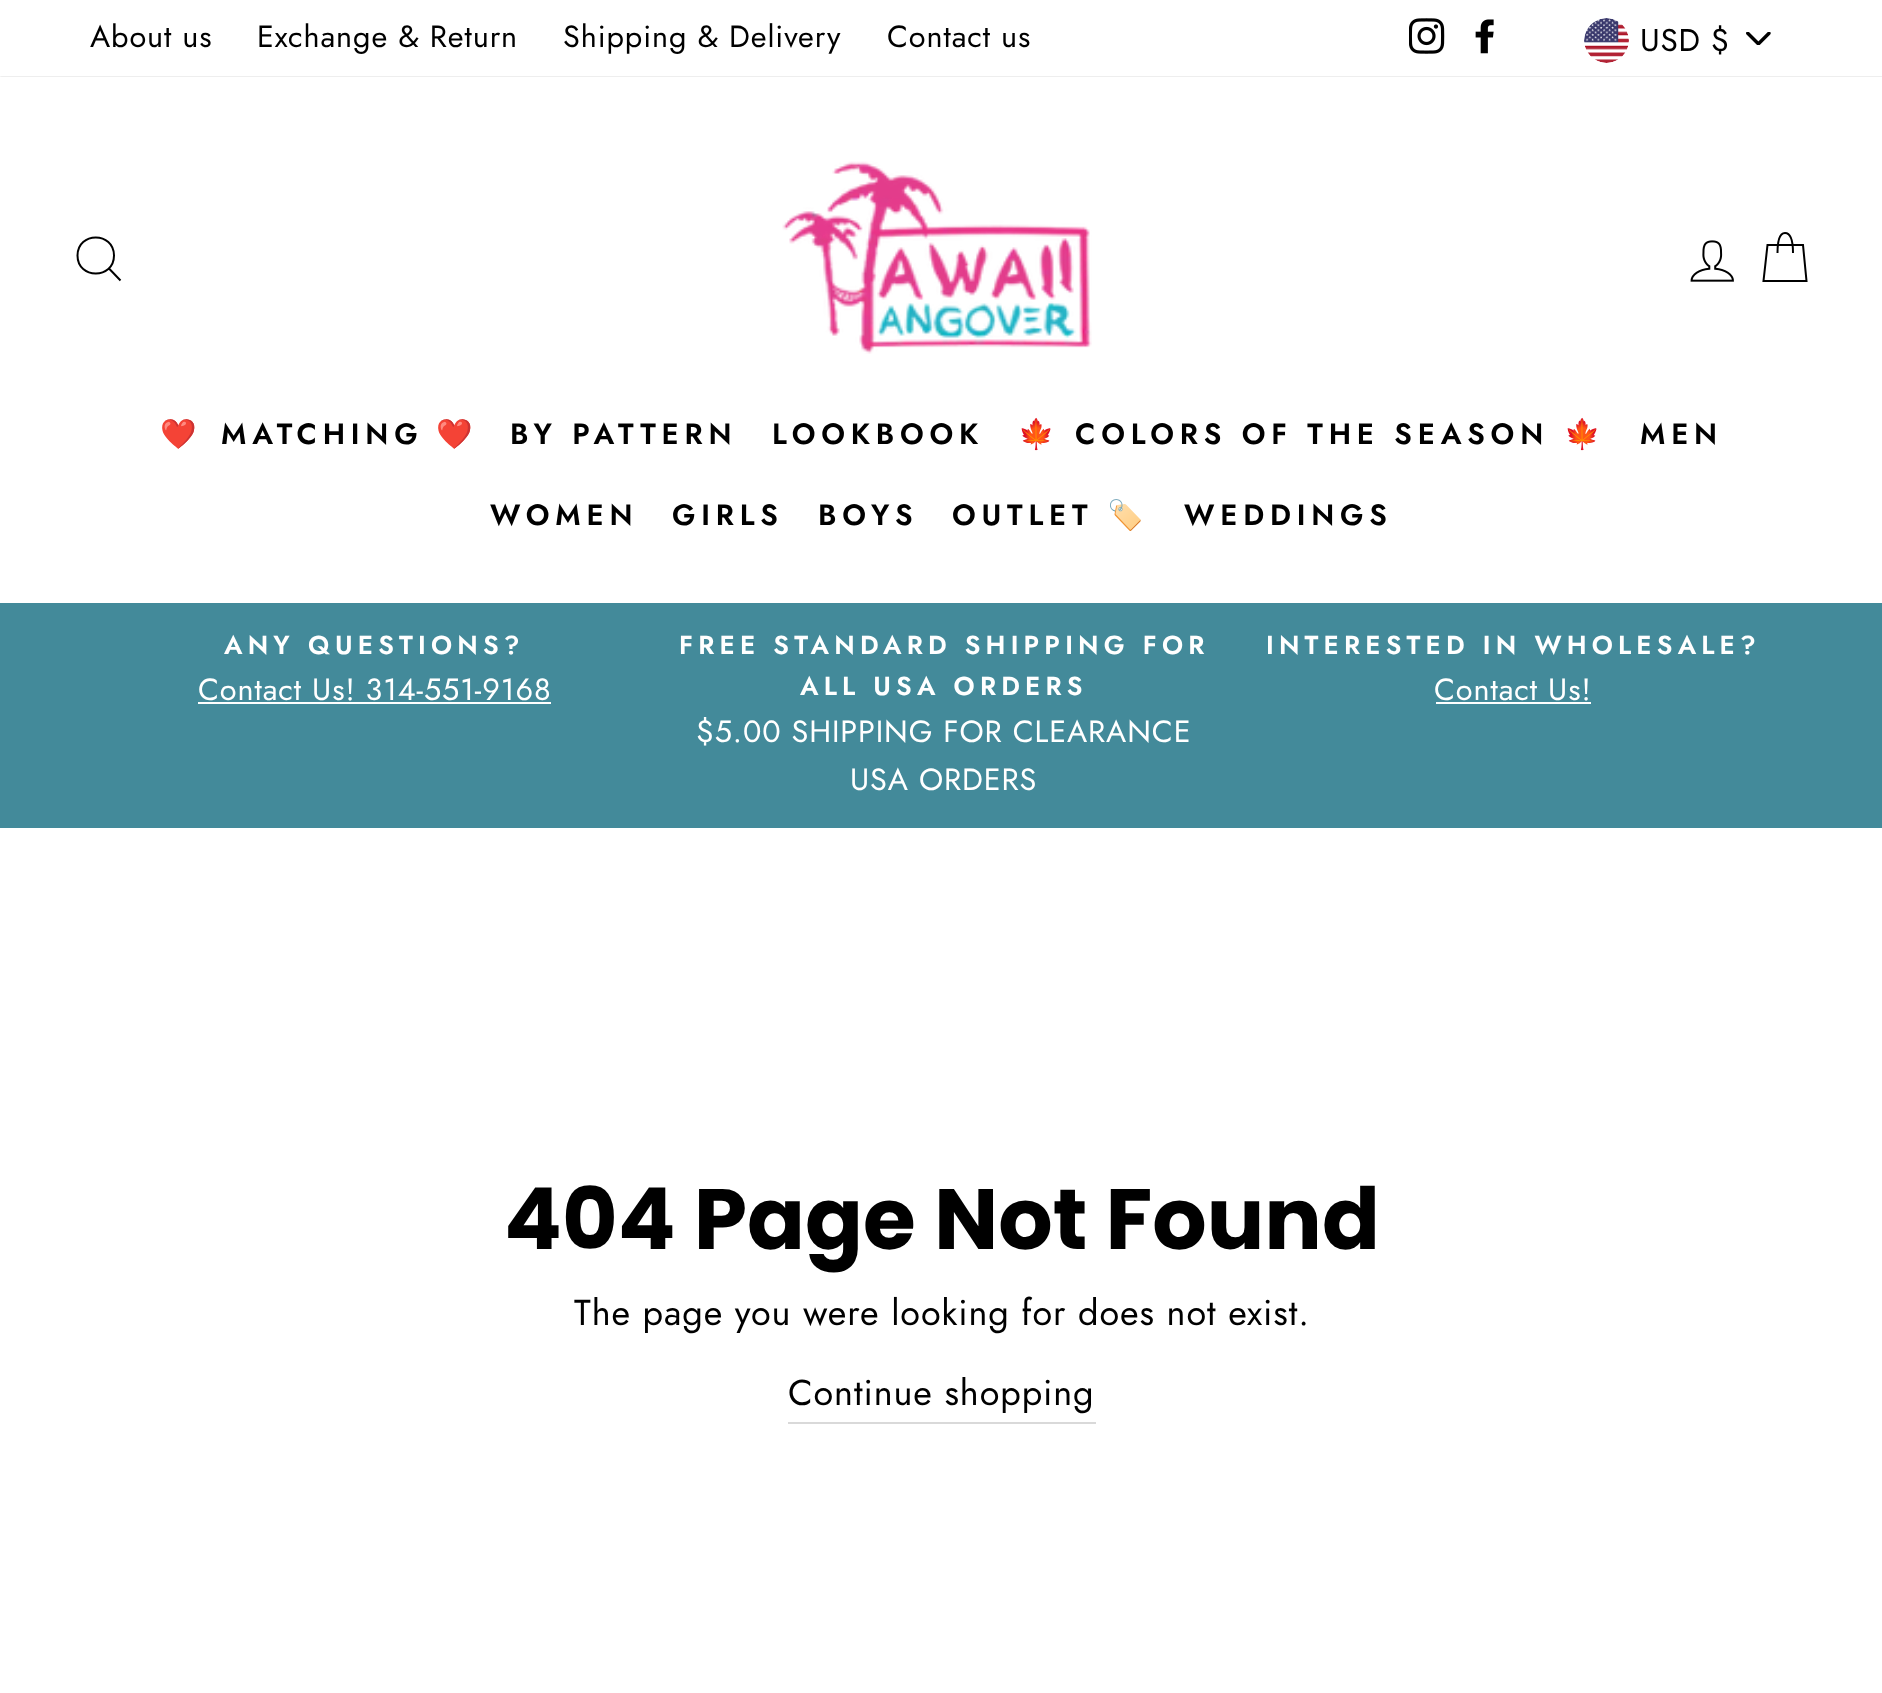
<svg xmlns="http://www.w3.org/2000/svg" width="1882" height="1693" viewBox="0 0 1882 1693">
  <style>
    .t1 { font: 30.6px Jost; letter-spacing: 0.9px; fill: #000; }
    .t2 { font: 31.5px Jost; letter-spacing: 0.75px; fill: #000; }
    .t3 { font: bold 29.25px Noto Color Emoji; letter-spacing: 5.8px; fill: #000; }
    .t4 { font: 600 29.25px Jost; letter-spacing: 5.8px; fill: #000; }
    .t5 { font: 600 26px Jost; letter-spacing: 5.2px; fill: #fff; }
    .t6 { font: 30.6px Jost; letter-spacing: 0.9px; fill: #fff; }
    .t7 { font: bold 85.5px Poppins; fill: #000; }
    .t8 { font: 36px Jost; letter-spacing: 0.9px; fill: #000; }
  </style>
  <defs>
    <clipPath id="clip1"><rect x="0" y="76" width="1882" height="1"/></clipPath>
  </defs>
  <rect width="100%" height="100%" fill="#fff"/>
  <text x="90" y="47" class="t1">About us</text>
  <text x="257" y="47" class="t1">Exchange &amp; Return</text>
  <text x="563" y="47" class="t1">Shipping &amp; Delivery</text>
  <text x="887" y="47" class="t1">Contact us</text>
  <image x="1409" y="18" width="36" height="36" href="images/1.png"/>
  <image x="1475" y="19" width="19" height="35" href="images/2.png"/>
  <image x="1746" y="32" width="25" height="13" href="images/3.png"/>
  <image x="1584" y="18" width="45" height="45" href="images/4.png"/>
  <text x="1640" y="51" class="t2">USD $</text>
  <g clip-path="url(#clip1)">
    <rect x="0" y="77" width="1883" height="526" fill="#00000033" filter="blur(1px)"/>
  </g>
  <path d="M114 255.5C114 279.5 77.5 279.5 77.5 255.5C77.5 231.5 114 231.5 114 255.5ZM120.5 280.5L109 268.5" fill="none" stroke="#000" stroke-width="2"/>
  <image x="782" y="161" width="310" height="193" href="images/5.png"/>
  <image x="1690" y="240" width="44" height="42" href="images/6.png"/>
  <path d="M1777.5 253C1777.5 237.5 1781 233 1785 233C1789.5 233 1793 237.5 1793 253M1767.5 245H1803L1806.5 281H1763.5Z" fill="none" stroke="#000" stroke-width="2"/>
  <text x="160" y="444" class="t3">❤️</text>
  <text x="221" y="444" class="t4">MATCHING</text>
  <text x="436" y="444" class="t3">❤️</text>
  <text x="510" y="444" class="t4">BY PATTERN</text>
  <text x="772" y="444" class="t4">LOOKBOOK</text>
  <text x="1018" y="444" class="t3">🍁</text>
  <text x="1075" y="444" class="t4">COLORS OF THE SEASON</text>
  <text x="1564" y="444" class="t3">🍁</text>
  <text x="1640" y="444" class="t4">MEN</text>
  <text x="490" y="525" class="t4">WOMEN</text>
  <text x="672" y="525" class="t4">GIRLS</text>
  <text x="818" y="525" class="t4">BOYS</text>
  <text x="952" y="525" class="t4">OUTLET</text>
  <text x="1107" y="525" class="t3">🏷️</text>
  <text x="1184" y="525" class="t4">WEDDINGS</text>
  <rect x="0" y="603" width="1882" height="225" fill="#438a9a"/>
  <text x="224" y="654" class="t5">ANY QUESTIONS?</text>
  <text x="198" y="700" class="t6">Contact Us! 314-551-9168</text>
  <rect x="198" y="702" width="353" height="2" fill="#fff"/>
  <text x="679" y="654" class="t5">FREE STANDARD SHIPPING FOR</text>
  <text x="800" y="695" class="t5">ALL USA ORDERS</text>
  <text x="696" y="742" class="t6">$5.00 SHIPPING FOR CLEARANCE</text>
  <text x="850" y="790" class="t6">USA ORDERS</text>
  <text x="1266" y="654" class="t5">INTERESTED IN WHOLESALE?</text>
  <text x="1434" y="700" class="t6">Contact Us!</text>
  <rect x="1436" y="702" width="155" height="2" fill="#fff"/>
  <text x="504" y="1249" class="t7">404 Page Not Found</text>
  <text x="574" y="1325" class="t8">The page you were looking for does not exist.</text>
  <rect x="788" y="1422" width="308" height="2" fill="#d9d9d9"/>
  <text x="788" y="1405" class="t8">Continue shopping</text>
</svg>
